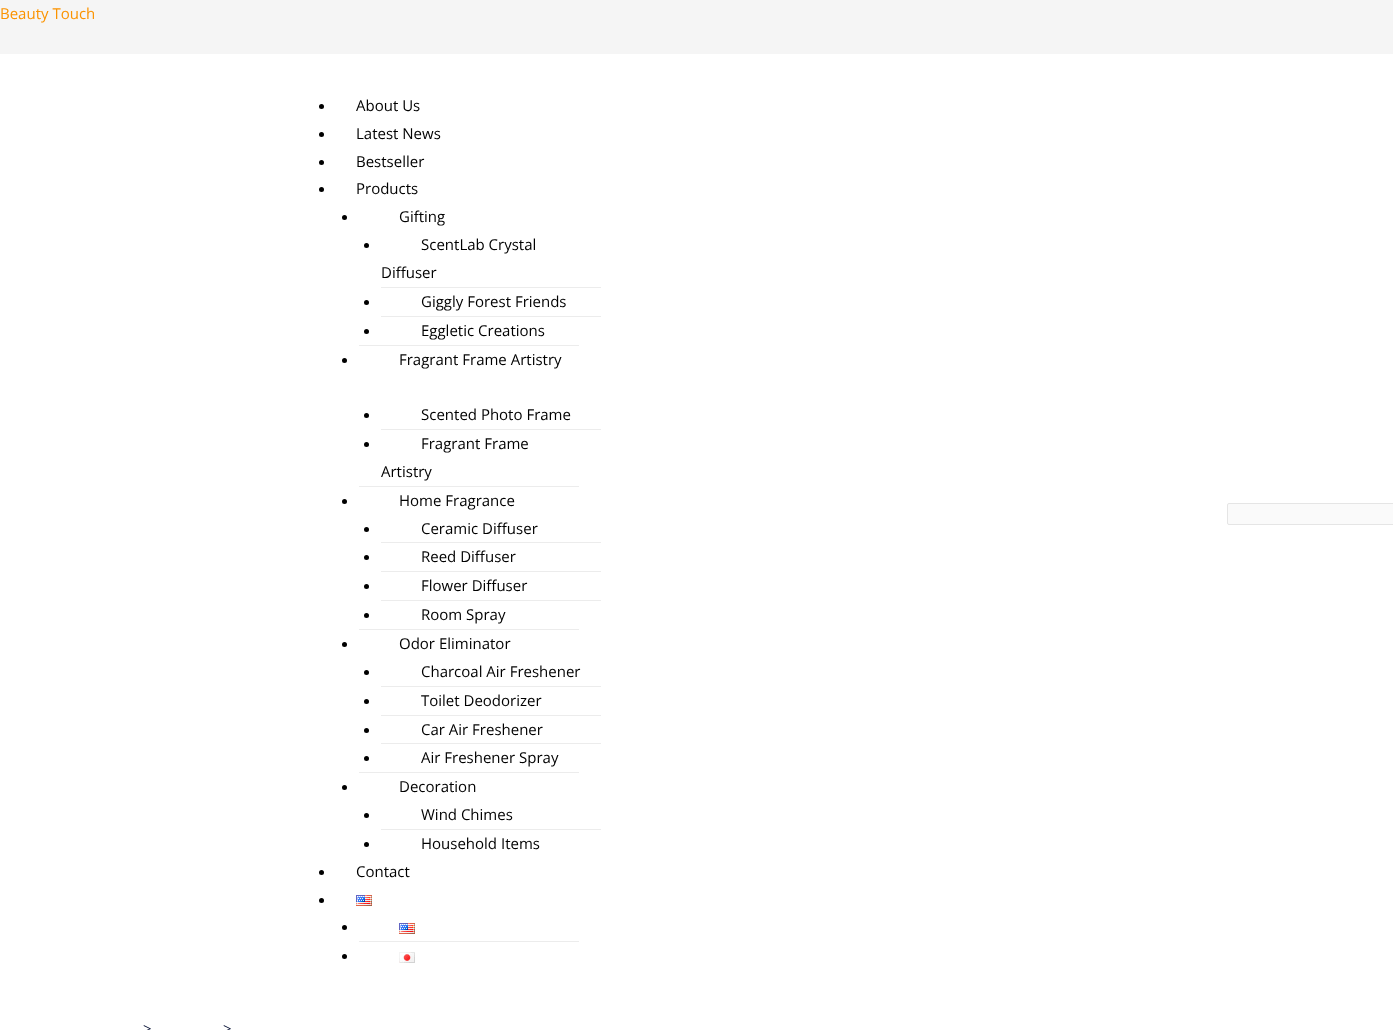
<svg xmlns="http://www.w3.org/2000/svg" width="1393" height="1030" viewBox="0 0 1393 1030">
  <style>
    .t1 { font: 15px Open Sans; fill: #fb9300; }
    .t2 { font: 15px Open Sans; fill: #000; }
    .t3 { font: 15px Open Sans; fill: #000c30; }
  </style>
  <rect width="100%" height="100%" fill="#f5f5f5"/>
  <text x="0" y="19" class="t1">Beauty Touch</text>
  <rect x="0" y="54" width="1393" height="976" fill="#fff"/>
  <circle cx="321.5" cy="106.5" r="2.5" fill="#000"/>
  <text x="356" y="111" class="t2">About Us</text>
  <circle cx="321.5" cy="134.5" r="2.5" fill="#000"/>
  <text x="356" y="139" class="t2">Latest News</text>
  <circle cx="321.5" cy="162.5" r="2.5" fill="#000"/>
  <text x="356" y="167" class="t2">Bestseller</text>
  <circle cx="321.5" cy="189.5" r="2.5" fill="#000"/>
  <text x="356" y="194" class="t2">Products</text>
  <rect x="359" y="345" width="220" height="1" fill="#ececec"/>
  <circle cx="344.5" cy="217.5" r="2.5" fill="#000"/>
  <text x="399" y="222" class="t2">Gifting</text>
  <rect x="381" y="287" width="220" height="1" fill="#ececec"/>
  <circle cx="366.5" cy="245.5" r="2.5" fill="#000"/>
  <text x="421" y="250" class="t2">ScentLab Crystal</text>
  <text x="381" y="278" class="t2">Diffuser</text>
  <rect x="381" y="316" width="220" height="1" fill="#ececec"/>
  <circle cx="366.5" cy="302.5" r="2.5" fill="#000"/>
  <text x="421" y="307" class="t2">Giggly Forest Friends</text>
  <circle cx="366.5" cy="331.5" r="2.5" fill="#000"/>
  <text x="421" y="336" class="t2">Eggletic Creations</text>
  <rect x="359" y="486" width="220" height="1" fill="#ececec"/>
  <circle cx="344.5" cy="360.5" r="2.5" fill="#000"/>
  <text x="399" y="365" class="t2">Fragrant Frame Artistry</text>
  <rect x="381" y="429" width="220" height="1" fill="#ececec"/>
  <circle cx="366.5" cy="415.5" r="2.5" fill="#000"/>
  <text x="421" y="420" class="t2">Scented Photo Frame</text>
  <circle cx="366.5" cy="444.5" r="2.5" fill="#000"/>
  <text x="421" y="449" class="t2">Fragrant Frame</text>
  <text x="381" y="477" class="t2">Artistry</text>
  <rect x="359" y="629" width="220" height="1" fill="#ececec"/>
  <circle cx="344.5" cy="501.5" r="2.5" fill="#000"/>
  <text x="399" y="506" class="t2">Home Fragrance</text>
  <rect x="381" y="542" width="220" height="1" fill="#ececec"/>
  <circle cx="366.5" cy="529.5" r="2.5" fill="#000"/>
  <text x="421" y="534" class="t2">Ceramic Diffuser</text>
  <rect x="381" y="571" width="220" height="1" fill="#ececec"/>
  <circle cx="366.5" cy="557.5" r="2.5" fill="#000"/>
  <text x="421" y="562" class="t2">Reed Diffuser</text>
  <rect x="381" y="600" width="220" height="1" fill="#ececec"/>
  <circle cx="366.5" cy="586.5" r="2.5" fill="#000"/>
  <text x="421" y="591" class="t2">Flower Diffuser</text>
  <circle cx="366.5" cy="615.5" r="2.5" fill="#000"/>
  <text x="421" y="620" class="t2">Room Spray</text>
  <rect x="359" y="772" width="220" height="1" fill="#ececec"/>
  <circle cx="344.5" cy="644.5" r="2.5" fill="#000"/>
  <text x="399" y="649" class="t2">Odor Eliminator</text>
  <rect x="381" y="686" width="220" height="1" fill="#ececec"/>
  <circle cx="366.5" cy="672.5" r="2.5" fill="#000"/>
  <text x="421" y="677" class="t2">Charcoal Air Freshener</text>
  <rect x="381" y="715" width="220" height="1" fill="#ececec"/>
  <circle cx="366.5" cy="701.5" r="2.5" fill="#000"/>
  <text x="421" y="706" class="t2">Toilet Deodorizer</text>
  <rect x="381" y="743" width="220" height="1" fill="#ececec"/>
  <circle cx="366.5" cy="730.5" r="2.5" fill="#000"/>
  <text x="421" y="735" class="t2">Car Air Freshener</text>
  <circle cx="366.5" cy="758.5" r="2.5" fill="#000"/>
  <text x="421" y="763" class="t2">Air Freshener Spray</text>
  <circle cx="344.5" cy="787.5" r="2.5" fill="#000"/>
  <text x="399" y="792" class="t2">Decoration</text>
  <rect x="381" y="829" width="220" height="1" fill="#ececec"/>
  <circle cx="366.5" cy="815.5" r="2.5" fill="#000"/>
  <text x="421" y="820" class="t2">Wind Chimes</text>
  <circle cx="366.5" cy="844.5" r="2.5" fill="#000"/>
  <text x="421" y="849" class="t2">Household Items</text>
  <circle cx="321.5" cy="872.5" r="2.5" fill="#000"/>
  <text x="356" y="877" class="t2">Contact</text>
  <circle cx="321.5" cy="900.5" r="2.5" fill="#000"/>
  <image x="356" y="895" width="16" height="11" href="images/1.png"/>
  <rect x="359" y="941" width="220" height="1" fill="#ececec"/>
  <circle cx="344.5" cy="927.5" r="2.5" fill="#000"/>
  <image x="399" y="923" width="16" height="11" href="images/1.png"/>
  <circle cx="344.5" cy="956.5" r="2.5" fill="#000"/>
  <image x="399" y="952" width="16" height="11" href="images/2.png"/>
  <rect x="1227.5" y="503.5" width="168" height="21" rx="1.5" fill="#fafafa" stroke="#e5e5e5"/>
  <text x="143" y="1034" class="t3">&gt;</text>
  <text x="223" y="1034" class="t3">&gt;</text>
</svg>
